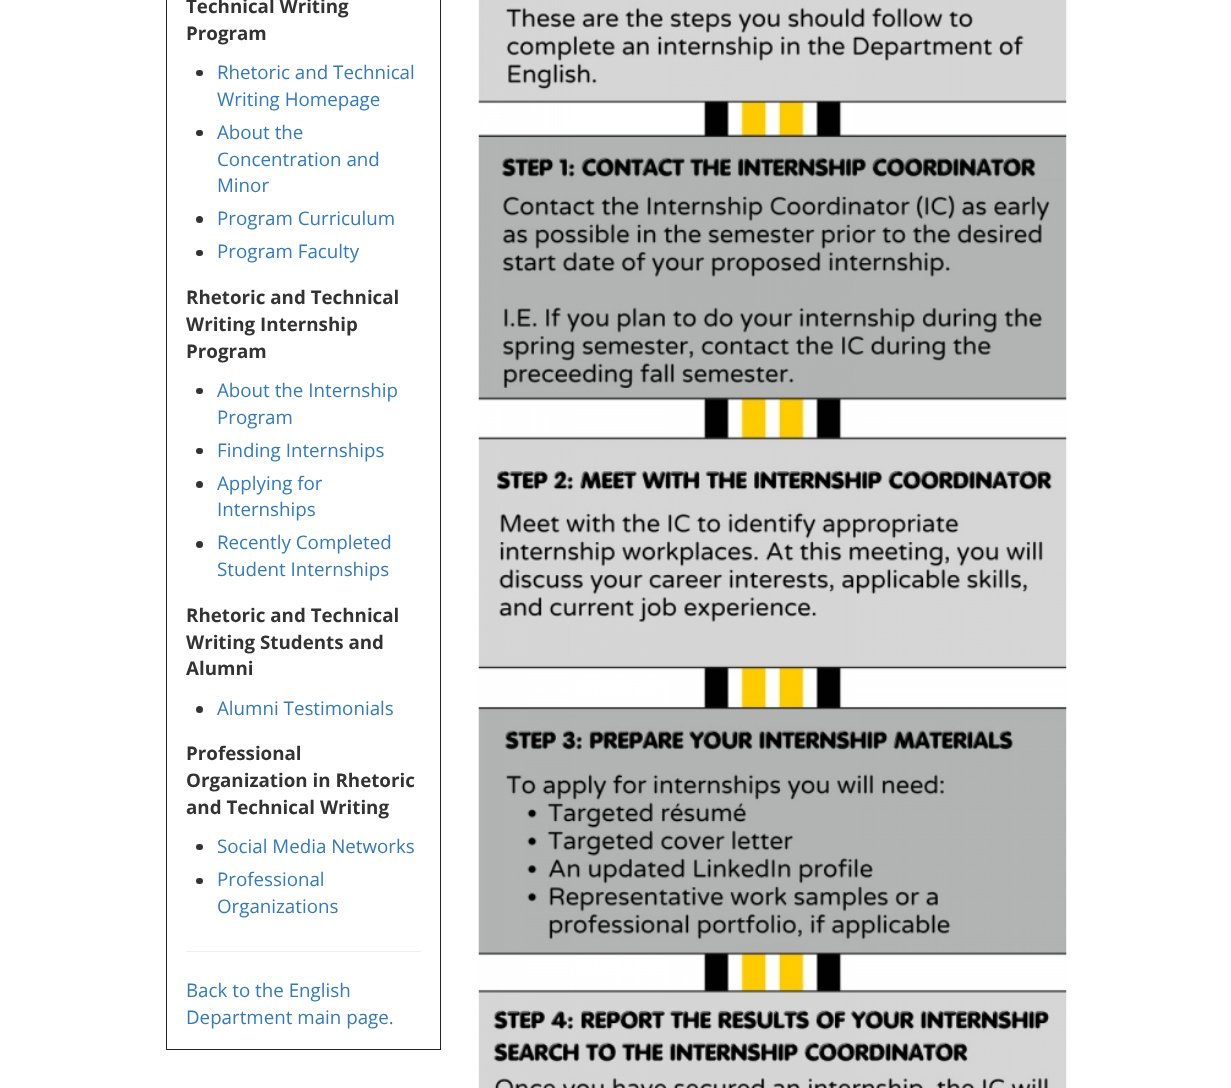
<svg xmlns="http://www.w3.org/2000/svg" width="1231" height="1088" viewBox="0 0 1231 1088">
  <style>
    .t1 { font: bold 18.75px Open Sans; fill: #333; }
    .t2 { font: 18.75px Open Sans; fill: #347ab7; }
  </style>
  <rect width="100%" height="100%" fill="#fff"/>
  <rect x="166.5" y="-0.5" width="274" height="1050" fill="none" stroke="#222"/>
  <text x="186" y="13" class="t1">Technical Writing</text>
  <text x="186" y="40" class="t1">Program</text>
  <rect x="196" y="70" width="7" height="6" rx="3" fill="#333"/>
  <text x="217" y="79" class="t2">Rhetoric and Technical</text>
  <text x="217" y="106" class="t2">Writing Homepage</text>
  <rect x="196" y="130" width="7" height="6" rx="3" fill="#333"/>
  <text x="217" y="139" class="t2">About the</text>
  <text x="217" y="166" class="t2">Concentration and</text>
  <text x="217" y="192" class="t2">Minor</text>
  <circle cx="199.5" cy="219.5" r="3.5" fill="#333"/>
  <text x="217" y="225" class="t2">Program Curriculum</text>
  <rect x="196" y="250" width="7" height="6" rx="3" fill="#333"/>
  <text x="217" y="258" class="t2">Program Faculty</text>
  <text x="186" y="304" class="t1">Rhetoric and Technical</text>
  <text x="186" y="331" class="t1">Writing Internship</text>
  <text x="186" y="358" class="t1">Program</text>
  <rect x="196" y="388" width="7" height="6" rx="3" fill="#333"/>
  <text x="217" y="397" class="t2">About the Internship</text>
  <text x="217" y="424" class="t2">Program</text>
  <rect x="196" y="448" width="7" height="6" rx="3" fill="#333"/>
  <text x="217" y="457" class="t2">Finding Internships</text>
  <circle cx="199.5" cy="484.5" r="3.5" fill="#333"/>
  <text x="217" y="490" class="t2">Applying for</text>
  <text x="217" y="516" class="t2">Internships</text>
  <circle cx="199.5" cy="544.5" r="3.5" fill="#333"/>
  <text x="217" y="549" class="t2">Recently Completed</text>
  <text x="217" y="576" class="t2">Student Internships</text>
  <text x="186" y="622" class="t1">Rhetoric and Technical</text>
  <text x="186" y="649" class="t1">Writing Students and</text>
  <text x="186" y="675" class="t1">Alumni</text>
  <circle cx="199.5" cy="709.5" r="3.5" fill="#333"/>
  <text x="217" y="715" class="t2">Alumni Testimonials</text>
  <text x="186" y="760" class="t1">Professional</text>
  <text x="186" y="787" class="t1">Organization in Rhetoric</text>
  <text x="186" y="814" class="t1">and Technical Writing</text>
  <rect x="196" y="844" width="7" height="6" rx="3" fill="#333"/>
  <text x="217" y="853" class="t2">Social Media Networks</text>
  <rect x="196" y="878" width="7" height="6" rx="3" fill="#333"/>
  <text x="217" y="886" class="t2">Professional</text>
  <text x="217" y="913" class="t2">Organizations</text>
  <rect x="186" y="951" width="235" height="1" fill="#eee"/>
  <text x="186" y="997" class="t2">Back to the English</text>
  <text x="186" y="1024" class="t2">Department main page.</text>
  <image x="478" y="0" width="589" height="1088" href="images/1.png"/>
</svg>
